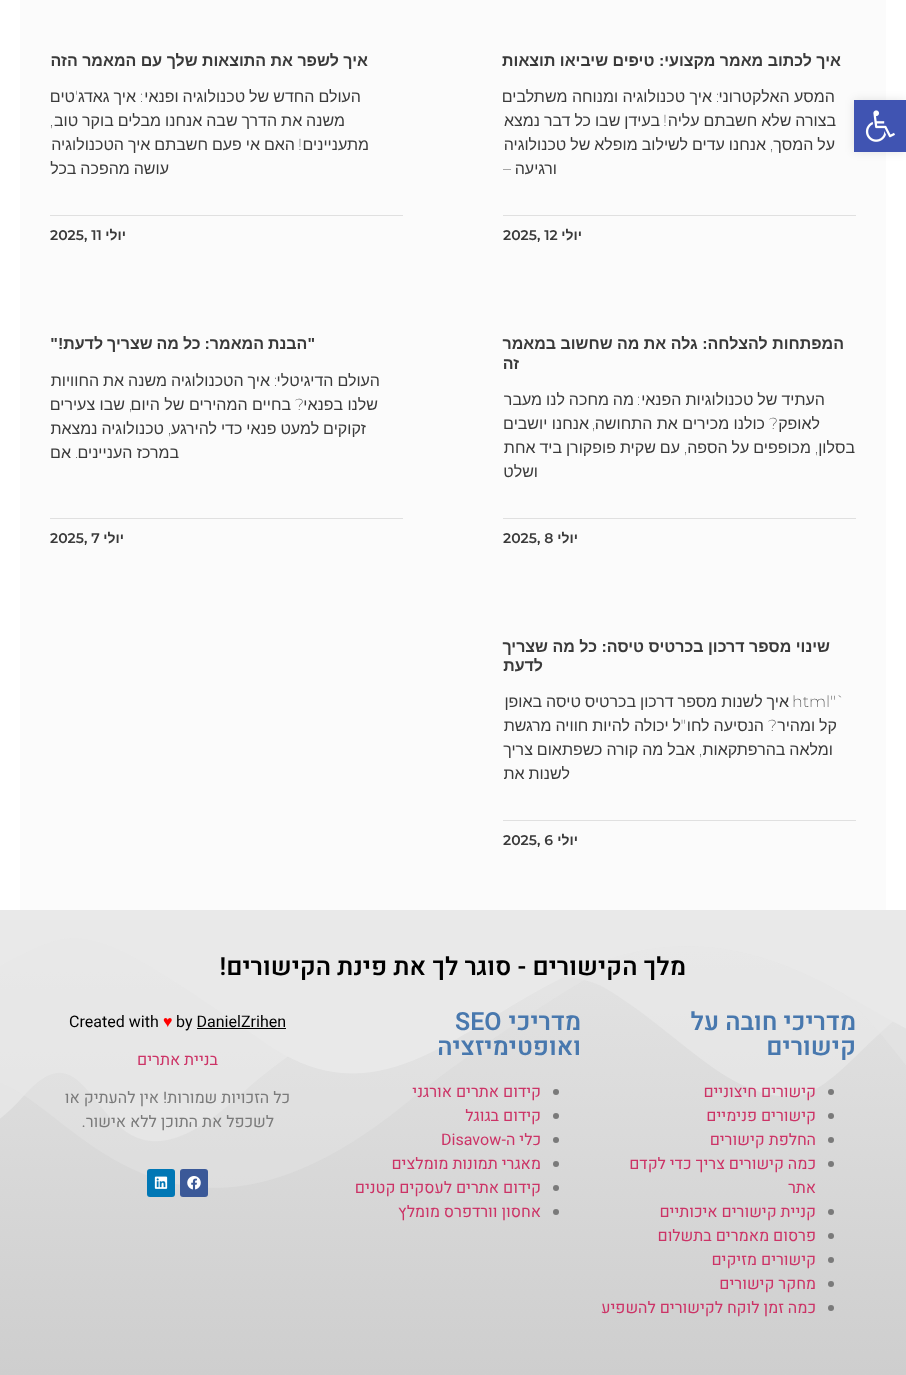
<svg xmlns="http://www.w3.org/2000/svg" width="906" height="1375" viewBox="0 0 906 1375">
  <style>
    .t1 { font: bold 16px Liberation Sans; direction: rtl; fill: #3a3a3a; }
    .t2 { font: 16px Liberation Sans; direction: rtl; fill: #3a3a3a; }
    .t3 { font: 200 16px Montserrat; direction: rtl; fill: #3a3a3a; }
    .t4 { font: bold 14px Liberation Sans; direction: rtl; fill: #3a3a3a; }
    .t5 { font: 600 14px Montserrat; fill: #3a3a3a; }
    .t6 { font: 200 16px Montserrat; fill: #3a3a3a; }
    .t7 { font: 600 25px Heebo; direction: rtl; fill: #000; }
    .t8 { font: 600 25px Heebo; direction: rtl; fill: #4878ae; }
    .t9 { font: 16px Heebo; direction: rtl; fill: #c36; }
    .t10 { font: 600 25px Heebo; fill: #4878ae; }
    .t11 { font: 16px Heebo; fill: #c36; }
    .t12 { font: 16px Heebo; fill: #000; }
    .t13 { font: 16px Liberation Sans; fill: #f00; }
    .t14 { font: 16px Heebo; direction: rtl; fill: #7a7a7a; }
  </style>
  <defs>
    <linearGradient id="g1" gradientUnits="userSpaceOnUse" x1="453" y1="910" x2="453" y2="1375"><stop offset="0" stop-color="#e5e5e5"/><stop offset="1" stop-color="#cecece"/></linearGradient>
  </defs>
  <rect width="100%" height="100%" fill="#fff"/>
  <rect x="20" y="0" width="866" height="910" fill="#fbfbfb"/>
  <rect x="854" y="100" width="52" height="52" fill="#0000001a" filter="blur(5px)"/>
  <rect x="854" y="100" width="52" height="52" fill="#4054b2"/>
  <image x="865" y="110" width="30" height="32" href="images/1.png"/>
  <text x="841" y="66" class="t1">איך לכתוב מאמר מקצועי: טיפים שיביאו תוצאות</text>
  <text x="835" y="102" class="t2">המסע האלקטרוני</text>
  <text x="719" y="102" class="t3">:</text>
  <text x="712" y="102" class="t2">איך טכנולוגיה ומנוחה משתלבים</text>
  <text x="836" y="126" word-spacing="-0.5" class="t2">בצורה שלא חשבתם עליה</text>
  <text x="667" y="126" class="t3">!</text>
  <text x="660" y="126" word-spacing="-0.5" class="t2">בעידן שבו כל דבר נמצא</text>
  <text x="835" y="150" word-spacing="-0.5" class="t2">על המסך</text>
  <text x="773" y="150" class="t3">,</text>
  <text x="766" y="150" word-spacing="-0.5" class="t2">אנחנו עדים לשילוב מופלא של טכנולוגיה</text>
  <text x="557" y="174" class="t2">ורגיעה</text>
  <text x="511" y="174" class="t3">–</text>
  <rect x="503" y="215" width="353" height="1" fill="#e0e0e0"/>
  <text x="582" y="240" class="t4">יולי</text>
  <text x="503" y="240" class="t5">2025, 12</text>
  <text x="368" y="66" class="t1">איך לשפר את התוצאות שלך עם המאמר הזה</text>
  <text x="361" y="102" word-spacing="-0.5" class="t2">העולם החדש של טכנולוגיה ופנאי</text>
  <text x="143" y="102" class="t3">:</text>
  <text x="136" y="102" word-spacing="-0.5" class="t2">איך גאדג</text>
  <text x="78" y="102" class="t3">'</text>
  <text x="75" y="102" class="t2">טים</text>
  <text x="345" y="126" word-spacing="-0.5" class="t2">משנה את הדרך שבה אנחנו מבלים בוקר טוב</text>
  <text x="53" y="126" class="t3">,</text>
  <text x="369" y="150" class="t2">מתעניינים</text>
  <text x="302" y="150" class="t3">!</text>
  <text x="295" y="150" word-spacing="-0.5" class="t2">האם אי פעם חשבתם איך הטכנולוגיה</text>
  <text x="169" y="174" word-spacing="-0.5" class="t2">עושה מהפכה בכל</text>
  <rect x="50" y="215" width="353" height="1" fill="#e0e0e0"/>
  <text x="126" y="240" class="t4">יולי</text>
  <text x="50" y="240" class="t5">2025, 11</text>
  <text x="844" y="349" class="t1">המפתחות להצלחה: גלה את מה שחשוב במאמר</text>
  <text x="519" y="369" class="t1">זה</text>
  <text x="825" y="405" word-spacing="-0.5" class="t2">העתיד של טכנולוגיות הפנאי</text>
  <text x="640" y="405" class="t3">:</text>
  <text x="634" y="405" word-spacing="-0.5" class="t2">מה מחכה לנו מעבר</text>
  <text x="820" y="429" class="t2">לאופק</text>
  <text x="778" y="429" class="t3">?</text>
  <text x="765" y="429" class="t2">כולנו מכירים את התחושה</text>
  <text x="595" y="429" class="t3">,</text>
  <text x="589" y="429" class="t2">אנחנו יושבים</text>
  <text x="855" y="453" class="t2">בסלון</text>
  <text x="818" y="453" class="t3">,</text>
  <text x="811" y="453" word-spacing="-0.5" class="t2">מכופפים על הספה</text>
  <text x="687" y="453" class="t3">,</text>
  <text x="680" y="453" word-spacing="-0.5" class="t2">עם שקית פופקורן ביד אחת</text>
  <text x="538" y="477" class="t2">ושלט</text>
  <rect x="503" y="518" width="353" height="1" fill="#e0e0e0"/>
  <text x="578" y="543" class="t4">יולי</text>
  <text x="503" y="543" class="t5">2025, 8</text>
  <text x="315" y="349" word-spacing="-0.5" class="t1">"הבנת המאמר: כל מה שצריך לדעת!"</text>
  <text x="380" y="386" word-spacing="-0.5" class="t2">העולם הדיגיטלי</text>
  <text x="277" y="386" class="t3">:</text>
  <text x="270" y="386" word-spacing="-0.5" class="t2">איך הטכנולוגיה משנה את החוויות</text>
  <text x="378" y="410" class="t2">שלנו בפנאי</text>
  <text x="304" y="410" class="t3">?</text>
  <text x="291" y="410" class="t2">בחיים המהירים של היום</text>
  <text x="132" y="410" class="t3">,</text>
  <text x="125" y="410" class="t2">שבו צעירים</text>
  <text x="366" y="434" word-spacing="-0.5" class="t2">זקוקים למעט פנאי כדי להירגע</text>
  <text x="171" y="434" class="t3">,</text>
  <text x="164" y="434" word-spacing="-0.5" class="t2">טכנולוגיה נמצאת</text>
  <text x="179" y="458" class="t2">במרכז העניינים</text>
  <text x="78" y="458" class="t3">.</text>
  <text x="71" y="458" class="t2">אם</text>
  <rect x="50" y="518" width="353" height="1" fill="#e0e0e0"/>
  <text x="124" y="543" class="t4">יולי</text>
  <text x="50" y="543" class="t5">2025, 7</text>
  <text x="830" y="652" class="t1">שינוי מספר דרכון בכרטיס טיסה: כל מה שצריך</text>
  <text x="543" y="671" class="t1">לדעת</text>
  <text x="792" y="707" class="t6">html"`</text>
  <text x="789" y="707" word-spacing="-0.5" class="t2">איך לשנות מספר דרכון בכרטיס טיסה באופן</text>
  <text x="837" y="731" word-spacing="-0.5" class="t2">קל ומהיר</text>
  <text x="777" y="731" class="t3">?</text>
  <text x="764" y="731" word-spacing="-0.5" class="t2">הנסיעה לחו</text>
  <text x="686" y="731" class="t3">"</text>
  <text x="681" y="731" word-spacing="-0.5" class="t2">ל יכולה להיות חוויה מרגשת</text>
  <text x="833" y="755" word-spacing="-0.5" class="t2">ומלאה בהרפתקאות</text>
  <text x="702" y="755" class="t3">,</text>
  <text x="695" y="755" word-spacing="-0.5" class="t2">אבל מה קורה כשפתאום צריך</text>
  <text x="570" y="779" word-spacing="-0.5" class="t2">לשנות את</text>
  <rect x="503" y="820" width="353" height="1" fill="#e0e0e0"/>
  <text x="578" y="845" class="t4">יולי</text>
  <text x="503" y="845" class="t5">2025, 6</text>
  <rect x="0" y="938" width="906" height="437" fill="url(#g1)"/>
  <image x="0" y="910" width="906" height="278" href="images/2.png"/>
  <text x="686" y="975" class="t7">מלך הקישורים - סוגר לך את פינת הקישורים!</text>
  <text x="856" y="1030" class="t8">מדריכי חובה על</text>
  <text x="856" y="1055" class="t8">קישורים</text>
  <circle cx="831" cy="1092" r="3" fill="#7a7a7a"/>
  <text x="816" y="1097" class="t9">קישורים חיצוניים</text>
  <circle cx="831" cy="1116" r="3" fill="#7a7a7a"/>
  <text x="816" y="1121" class="t9">קישורים פנימיים</text>
  <circle cx="831" cy="1140" r="3" fill="#7a7a7a"/>
  <text x="816" y="1145" class="t9">החלפת קישורים</text>
  <circle cx="831" cy="1164" r="3" fill="#7a7a7a"/>
  <text x="816" y="1169" class="t9">כמה קישורים צריך כדי לקדם</text>
  <text x="816" y="1193" class="t9">אתר</text>
  <circle cx="831" cy="1212" r="3" fill="#7a7a7a"/>
  <text x="816" y="1217" class="t9">קניית קישורים איכותיים</text>
  <circle cx="831" cy="1236" r="3" fill="#7a7a7a"/>
  <text x="816" y="1241" class="t9">פרסום מאמרים בתשלום</text>
  <circle cx="831" cy="1260" r="3" fill="#7a7a7a"/>
  <text x="816" y="1265" class="t9">קישורים מזיקים</text>
  <circle cx="831" cy="1284" r="3" fill="#7a7a7a"/>
  <text x="816" y="1289" class="t9">מחקר קישורים</text>
  <circle cx="831" cy="1308" r="3" fill="#7a7a7a"/>
  <text x="816" y="1313" class="t9">כמה זמן לוקח לקישורים להשפיע</text>
  <text x="581" y="1030" class="t8">מדריכי</text>
  <text x="455" y="1030" class="t10">SEO</text>
  <text x="581" y="1055" class="t8">ואופטימיזציה</text>
  <circle cx="556" cy="1092" r="3" fill="#7a7a7a"/>
  <text x="541" y="1097" class="t9">קידום אתרים אורגני</text>
  <circle cx="556" cy="1116" r="3" fill="#7a7a7a"/>
  <text x="541" y="1121" class="t9">קידום בגוגל</text>
  <circle cx="556" cy="1140" r="3" fill="#7a7a7a"/>
  <text x="541" y="1145" class="t9">כלי ה-</text>
  <text x="441" y="1145" class="t11">Disavow</text>
  <circle cx="556" cy="1164" r="3" fill="#7a7a7a"/>
  <text x="541" y="1169" class="t9">מאגרי תמונות מומלצים</text>
  <circle cx="556" cy="1188" r="3" fill="#7a7a7a"/>
  <text x="541" y="1193" class="t9">קידום אתרים לעסקים קטנים</text>
  <circle cx="556" cy="1212" r="3" fill="#7a7a7a"/>
  <text x="541" y="1217" class="t9">אחסון וורדפרס מומלץ</text>
  <text x="176" y="1027" class="t12">by DanielZrihen</text>
  <rect x="197" y="1028" width="89" height="1" fill="#000"/>
  <text x="163" y="1027" class="t13">♥</text>
  <text x="69" y="1027" class="t12">Created with</text>
  <text x="218" y="1065" class="t9">בניית אתרים</text>
  <text x="290" y="1103" class="t14">כל הזכויות שמורות! אין להעתיק או</text>
  <text x="274" y="1127" class="t14">לשכפל את התוכן ללא אישור.</text>
  <rect x="180" y="1169" width="28" height="28" rx="3" fill="#3b5998"/>
  <image x="187" y="1176" width="14" height="14" href="images/3.png"/>
  <rect x="147" y="1169" width="28" height="28" rx="3" fill="#0077b5"/>
  <image x="154" y="1176" width="14" height="13" href="images/4.png"/>
</svg>
